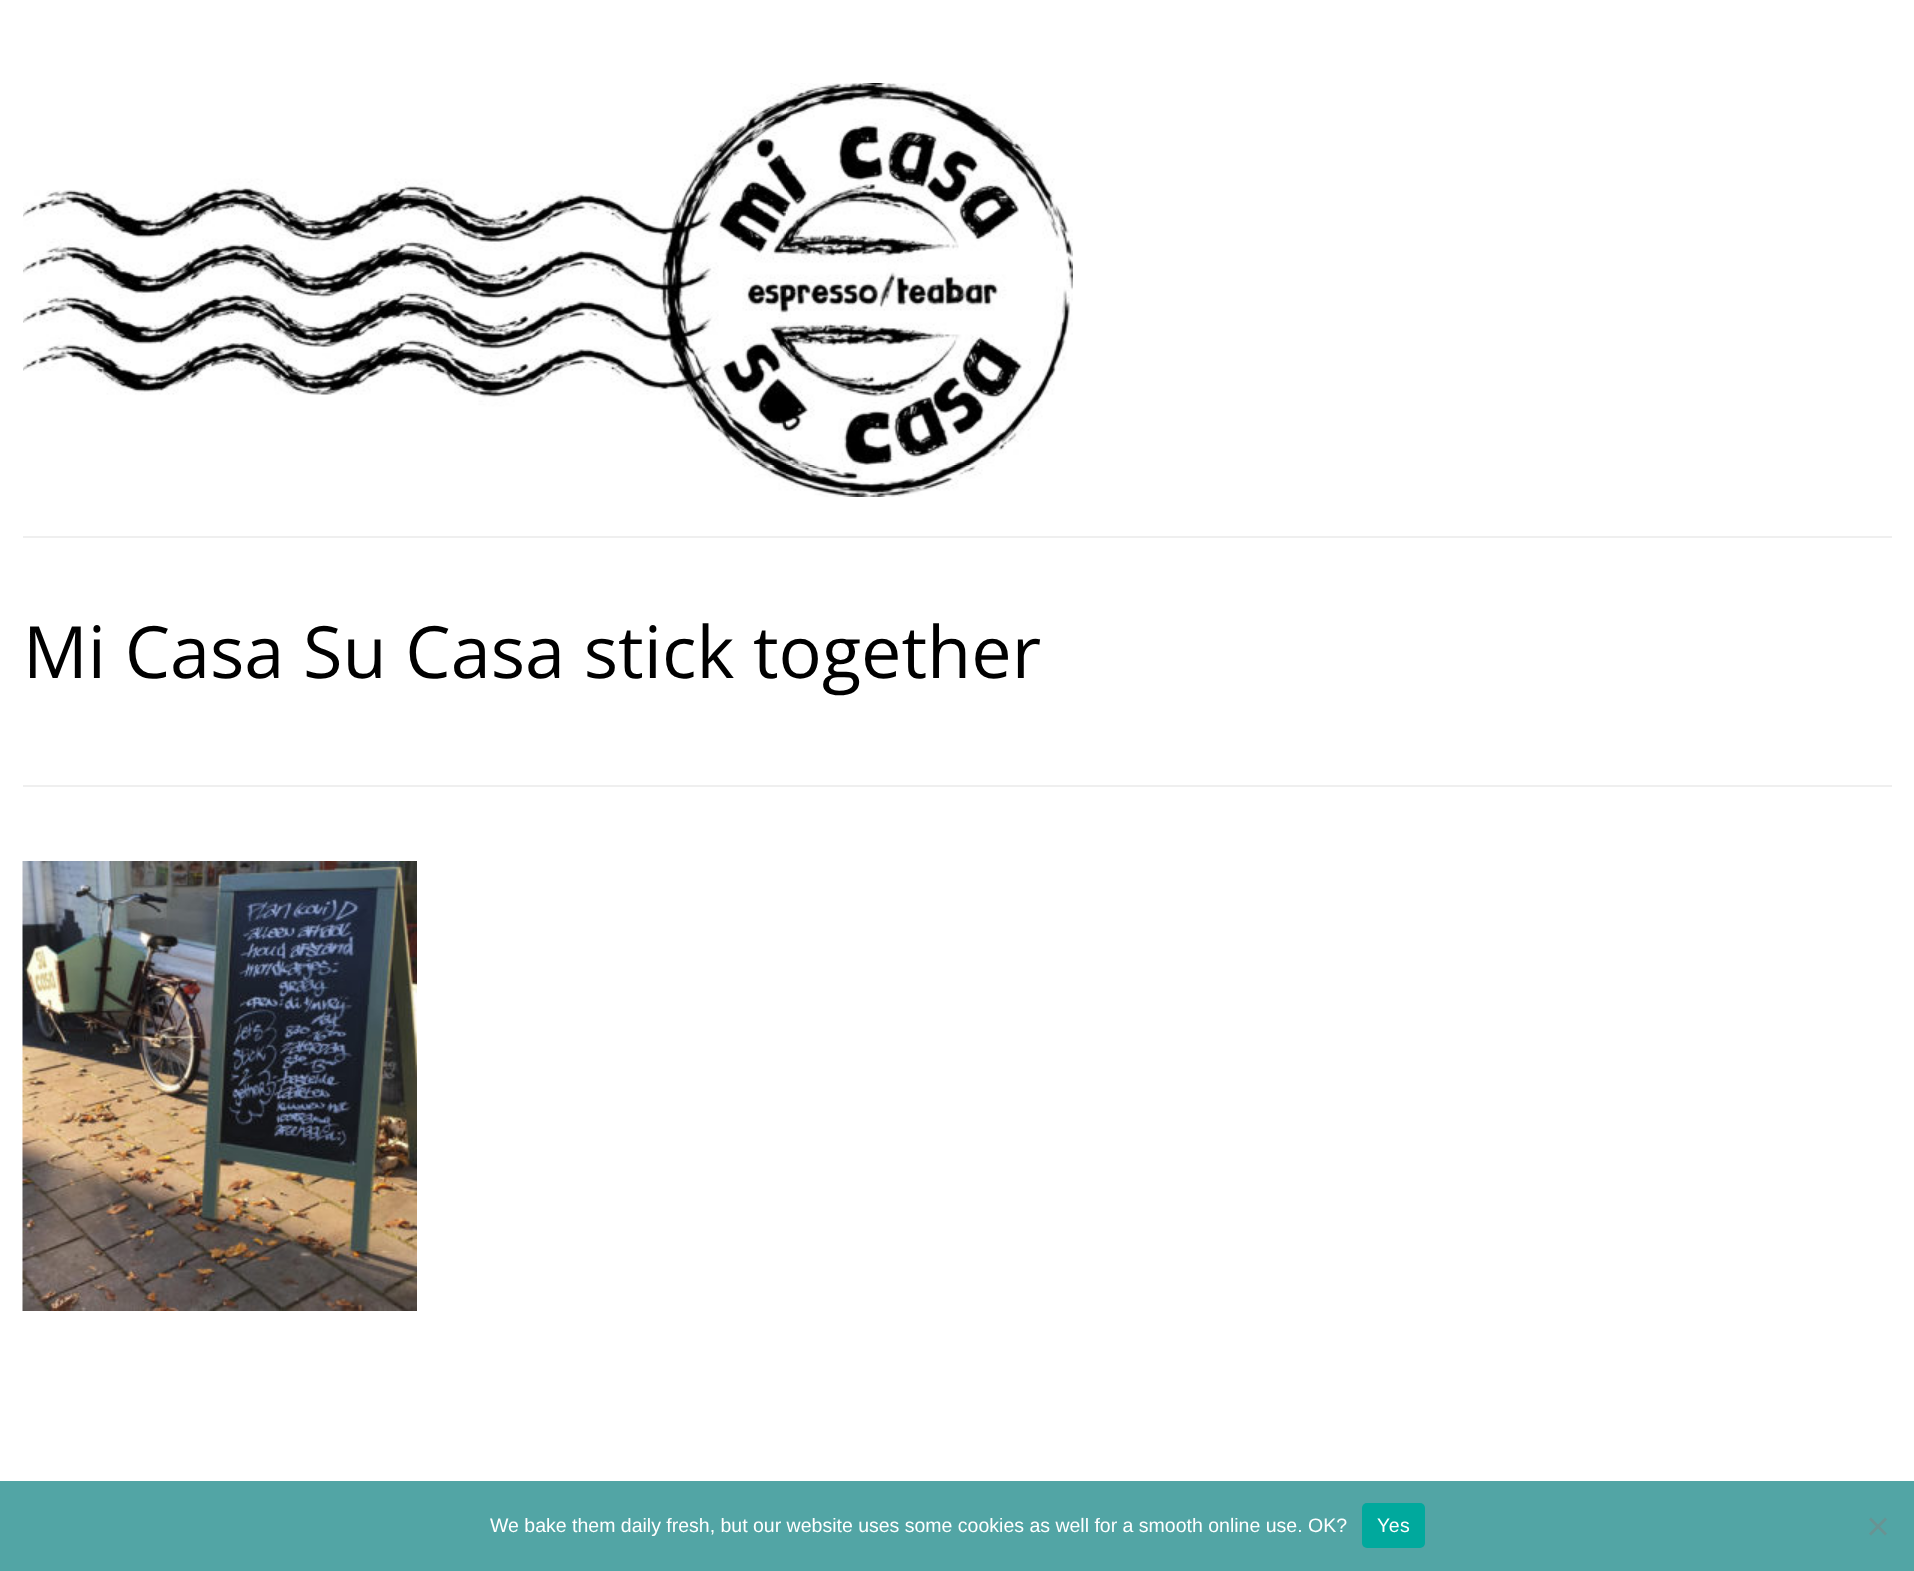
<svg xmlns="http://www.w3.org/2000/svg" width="1914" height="1571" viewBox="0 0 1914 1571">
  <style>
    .t1 { font: 72px Open Sans; fill: #000; }
    .t2 { font: 19.5px Liberation Sans; fill: #fff; }
    .t3 { font: 19.5px Liberation Sans; letter-spacing: 0.5px; fill: #fff; }
  </style>
  <rect width="100%" height="100%" fill="#fff"/>
  <image x="23" y="83" width="1050" height="414" href="images/1.png"/>
  <rect x="23" y="536" width="1869" height="2" fill="#efefef"/>
  <rect x="23" y="785" width="1869" height="2" fill="#efefef"/>
  <text x="23" y="678" class="t1">Mi Casa Su Casa stick together</text>
  <image x="22" y="861" width="395" height="450" href="images/2.png"/>
  <rect x="0" y="1481" width="1914" height="90" fill="#52a5a5"/>
  <text x="490" y="1532" class="t2">We bake them daily fresh, but our website uses some cookies as well for a smooth online use. OK?</text>
  <rect x="1362" y="1503" width="63" height="45" rx="5" fill="#00a99d"/>
  <text x="1377" y="1532" class="t3">Yes</text>
  <path d="M1885 1517.5L1887 1519.5L1871 1535.5L1869 1533.5Z" fill="#699393"/>
  <path d="M1869 1519.5L1871 1517.5L1887 1533.5L1885 1535.5Z" fill="#699393"/>
</svg>
